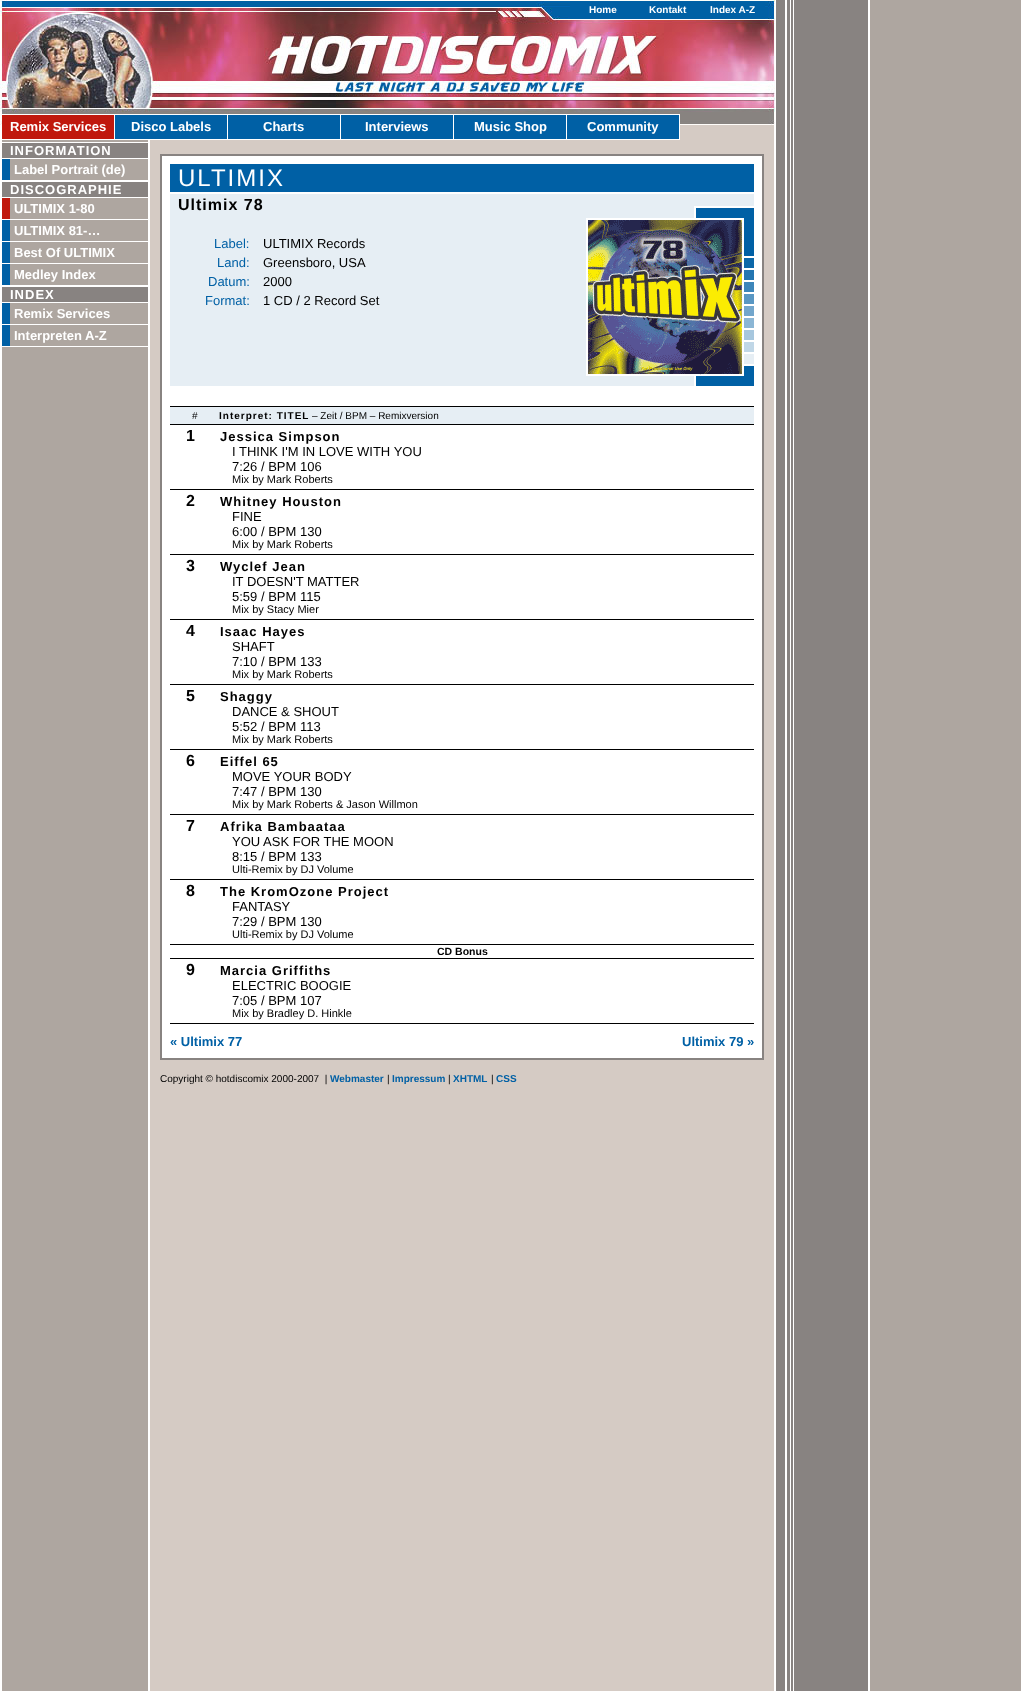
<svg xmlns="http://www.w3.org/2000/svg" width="1021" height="1691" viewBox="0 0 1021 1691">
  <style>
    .t1 { font: bold 10px Liberation Sans; fill: #fff; }
    .t2 { font: bold 13px Liberation Sans; fill: #fff; }
    .t3 { font: bold 13px Liberation Sans; letter-spacing: 1px; fill: #fff; }
    .t4 { font: 24px Liberation Sans; letter-spacing: 2px; fill: #fff; }
    .t5 { font: bold 16px Liberation Sans; letter-spacing: 1px; fill: #000; }
    .t6 { font: 13px Liberation Sans; fill: #0060a5; }
    .t7 { font: 13px Liberation Sans; fill: #000; }
    .t8 { font: 10px Liberation Sans; fill: #000; }
    .t9 { font: bold 10px Liberation Sans; letter-spacing: 1px; fill: #000; }
    .t10 { font: bold 16px Liberation Sans; fill: #000; }
    .t11 { font: bold 13px Liberation Sans; letter-spacing: 1px; fill: #000; }
    .t12 { font: 11px Liberation Sans; fill: #000; }
    .t13 { font: bold 10.5px Liberation Sans; fill: #000; }
    .t14 { font: bold 13px Liberation Sans; fill: #0060a5; }
    .t15 { font: bold 10px Liberation Sans; fill: #0060a5; }
  </style>
  <rect width="100%" height="100%" fill="#aea6a0"/>
  <image x="0" y="0" width="870" height="1691" href="images/1.png"/>
  <image x="0" y="0" width="775" height="125" href="images/2.png"/>
  <rect x="570" y="1" width="195" height="18" fill="#0060a5"/>
  <text x="589" y="13" class="t1">Home</text>
  <text x="649" y="13" class="t1">Kontakt</text>
  <text x="710" y="13" class="t1">Index A-Z</text>
  <rect x="2" y="115" width="112" height="24" fill="#c0180d"/>
  <rect x="2" y="114" width="678" height="1" fill="#fff"/>
  <rect x="114" y="114" width="1" height="26" fill="#fff"/>
  <rect x="2" y="139" width="113" height="1" fill="#fff"/>
  <text x="10" y="131" class="t2">Remix Services</text>
  <rect x="115" y="115" width="112" height="24" fill="#0060a5"/>
  <rect x="227" y="114" width="1" height="26" fill="#fff"/>
  <rect x="115" y="139" width="113" height="1" fill="#fff"/>
  <text x="131" y="131" class="t2">Disco Labels</text>
  <rect x="228" y="115" width="112" height="24" fill="#0060a5"/>
  <rect x="340" y="114" width="1" height="26" fill="#fff"/>
  <rect x="228" y="139" width="113" height="1" fill="#fff"/>
  <text x="263" y="131" class="t2">Charts</text>
  <rect x="341" y="115" width="112" height="24" fill="#0060a5"/>
  <rect x="453" y="114" width="1" height="26" fill="#fff"/>
  <rect x="341" y="139" width="113" height="1" fill="#fff"/>
  <text x="365" y="131" class="t2">Interviews</text>
  <rect x="454" y="115" width="112" height="24" fill="#0060a5"/>
  <rect x="566" y="114" width="1" height="26" fill="#fff"/>
  <rect x="454" y="139" width="113" height="1" fill="#fff"/>
  <text x="474" y="131" class="t2">Music Shop</text>
  <rect x="567" y="115" width="112" height="24" fill="#0060a5"/>
  <rect x="679" y="114" width="1" height="26" fill="#fff"/>
  <rect x="567" y="139" width="113" height="1" fill="#fff"/>
  <text x="587" y="131" class="t2">Community</text>
  <rect x="2" y="143" width="146" height="15" fill="#888381"/>
  <rect x="2" y="142" width="146" height="1" fill="#fff"/>
  <rect x="2" y="158" width="146" height="1" fill="#fff"/>
  <text x="10" y="155" class="t3">INFORMATION</text>
  <rect x="2" y="180" width="146" height="2" fill="#fff"/>
  <rect x="2" y="159" width="8" height="21" fill="#0060a5"/>
  <text x="14" y="174" class="t2">Label Portrait (de)</text>
  <rect x="2" y="182" width="146" height="15" fill="#888381"/>
  <rect x="2" y="197" width="146" height="1" fill="#fff"/>
  <text x="10" y="194" class="t3">DISCOGRAPHIE</text>
  <rect x="2" y="219" width="146" height="1" fill="#fff"/>
  <rect x="2" y="198" width="8" height="21" fill="#c0180d"/>
  <text x="14" y="213" class="t2">ULTIMIX 1-80</text>
  <rect x="2" y="241" width="146" height="1" fill="#fff"/>
  <rect x="2" y="220" width="8" height="21" fill="#0060a5"/>
  <text x="14" y="235" class="t2">ULTIMIX 81-…</text>
  <rect x="2" y="263" width="146" height="1" fill="#fff"/>
  <rect x="2" y="242" width="8" height="21" fill="#0060a5"/>
  <text x="14" y="257" class="t2">Best Of ULTIMIX</text>
  <rect x="2" y="285" width="146" height="2" fill="#fff"/>
  <rect x="2" y="264" width="8" height="21" fill="#0060a5"/>
  <text x="14" y="279" class="t2">Medley Index</text>
  <rect x="2" y="287" width="146" height="15" fill="#888381"/>
  <rect x="2" y="302" width="146" height="1" fill="#fff"/>
  <text x="10" y="299" class="t3">INDEX</text>
  <rect x="2" y="324" width="146" height="1" fill="#fff"/>
  <rect x="2" y="303" width="8" height="21" fill="#0060a5"/>
  <text x="14" y="318" class="t2">Remix Services</text>
  <rect x="2" y="346" width="146" height="1" fill="#fff"/>
  <rect x="2" y="325" width="8" height="21" fill="#0060a5"/>
  <text x="14" y="340" class="t2">Interpreten A-Z</text>
  <rect x="161" y="155" width="602" height="904" fill="#fff" stroke="#888381" stroke-width="2"/>
  <rect x="170" y="164" width="584" height="28" fill="#0060a5"/>
  <text x="178" y="186" class="t4">ULTIMIX</text>
  <rect x="170" y="194" width="584" height="192" fill="#e6eef4"/>
  <image x="586" y="206" width="168" height="180" href="images/3.png"/>
  <text x="178" y="210" class="t5">Ultimix 78</text>
  <text x="214" y="248" class="t6">Label:</text>
  <text x="263" y="248" class="t7">ULTIMIX Records</text>
  <text x="217" y="267" class="t6">Land:</text>
  <text x="263" y="267" class="t7">Greensboro, USA</text>
  <text x="208" y="286" class="t6">Datum:</text>
  <text x="263" y="286" class="t7">2000</text>
  <text x="205" y="305" class="t6">Format:</text>
  <text x="263" y="305" class="t7">1 CD / 2 Record Set</text>
  <image x="588" y="220" width="154" height="155" href="images/4.png"/>
  <rect x="170" y="407" width="584" height="17" fill="#e6eef4"/>
  <rect x="170" y="406" width="584" height="1" fill="#000"/>
  <rect x="170" y="424" width="584" height="1" fill="#000"/>
  <text x="192" y="419" class="t8">#</text>
  <text x="219" y="419" class="t9">Interpret: TITEL</text>
  <text x="312" y="419" class="t8">– Zeit / BPM – Remixversion</text>
  <rect x="170" y="489" width="584" height="1" fill="#000"/>
  <text x="186" y="441" class="t10">1</text>
  <text x="220" y="441" class="t11">Jessica Simpson</text>
  <text x="232" y="456" class="t7">I THINK I'M IN LOVE WITH YOU</text>
  <text x="232" y="471" class="t7">7:26 / BPM 106</text>
  <text x="232" y="483" class="t12">Mix by Mark Roberts</text>
  <rect x="170" y="554" width="584" height="1" fill="#000"/>
  <text x="186" y="506" class="t10">2</text>
  <text x="220" y="506" class="t11">Whitney Houston</text>
  <text x="232" y="521" class="t7">FINE</text>
  <text x="232" y="536" class="t7">6:00 / BPM 130</text>
  <text x="232" y="548" class="t12">Mix by Mark Roberts</text>
  <rect x="170" y="619" width="584" height="1" fill="#000"/>
  <text x="186" y="571" class="t10">3</text>
  <text x="220" y="571" class="t11">Wyclef Jean</text>
  <text x="232" y="586" class="t7">IT DOESN'T MATTER</text>
  <text x="232" y="601" class="t7">5:59 / BPM 115</text>
  <text x="232" y="613" class="t12">Mix by Stacy Mier</text>
  <rect x="170" y="684" width="584" height="1" fill="#000"/>
  <text x="186" y="636" class="t10">4</text>
  <text x="220" y="636" class="t11">Isaac Hayes</text>
  <text x="232" y="651" class="t7">SHAFT</text>
  <text x="232" y="666" class="t7">7:10 / BPM 133</text>
  <text x="232" y="678" class="t12">Mix by Mark Roberts</text>
  <rect x="170" y="749" width="584" height="1" fill="#000"/>
  <text x="186" y="701" class="t10">5</text>
  <text x="220" y="701" class="t11">Shaggy</text>
  <text x="232" y="716" class="t7">DANCE &amp; SHOUT</text>
  <text x="232" y="731" class="t7">5:52 / BPM 113</text>
  <text x="232" y="743" class="t12">Mix by Mark Roberts</text>
  <rect x="170" y="814" width="584" height="1" fill="#000"/>
  <text x="186" y="766" class="t10">6</text>
  <text x="220" y="766" class="t11">Eiffel 65</text>
  <text x="232" y="781" class="t7">MOVE YOUR BODY</text>
  <text x="232" y="796" class="t7">7:47 / BPM 130</text>
  <text x="232" y="808" class="t12">Mix by Mark Roberts &amp; Jason Willmon</text>
  <rect x="170" y="879" width="584" height="1" fill="#000"/>
  <text x="186" y="831" class="t10">7</text>
  <text x="220" y="831" class="t11">Afrika Bambaataa</text>
  <text x="232" y="846" class="t7">YOU ASK FOR THE MOON</text>
  <text x="232" y="861" class="t7">8:15 / BPM 133</text>
  <text x="232" y="873" class="t12">Ulti-Remix by DJ Volume</text>
  <rect x="170" y="944" width="584" height="1" fill="#000"/>
  <text x="186" y="896" class="t10">8</text>
  <text x="220" y="896" class="t11">The KromOzone Project</text>
  <text x="232" y="911" class="t7">FANTASY</text>
  <text x="232" y="926" class="t7">7:29 / BPM 130</text>
  <text x="232" y="938" class="t12">Ulti-Remix by DJ Volume</text>
  <rect x="170" y="958" width="584" height="1" fill="#000"/>
  <text x="437" y="955" class="t13">CD Bonus</text>
  <rect x="170" y="1023" width="584" height="1" fill="#000"/>
  <text x="186" y="975" class="t10">9</text>
  <text x="220" y="975" class="t11">Marcia Griffiths</text>
  <text x="232" y="990" class="t7">ELECTRIC BOOGIE</text>
  <text x="232" y="1005" class="t7">7:05 / BPM 107</text>
  <text x="232" y="1017" class="t12">Mix by Bradley D. Hinkle</text>
  <text x="170" y="1046" class="t14">« Ultimix 77</text>
  <text x="682" y="1046" class="t14">Ultimix 79 »</text>
  <text x="160" y="1082" class="t8" xml:space="preserve">Copyright © hotdiscomix 2000-2007  |</text>
  <text x="330" y="1082" class="t15">Webmaster</text>
  <text x="387" y="1082" class="t8">|</text>
  <text x="392" y="1082" class="t15">Impressum</text>
  <text x="448" y="1082" class="t8">|</text>
  <text x="453" y="1082" class="t15">XHTML</text>
  <text x="491" y="1082" class="t8">|</text>
  <text x="496" y="1082" class="t15">CSS</text>
</svg>
